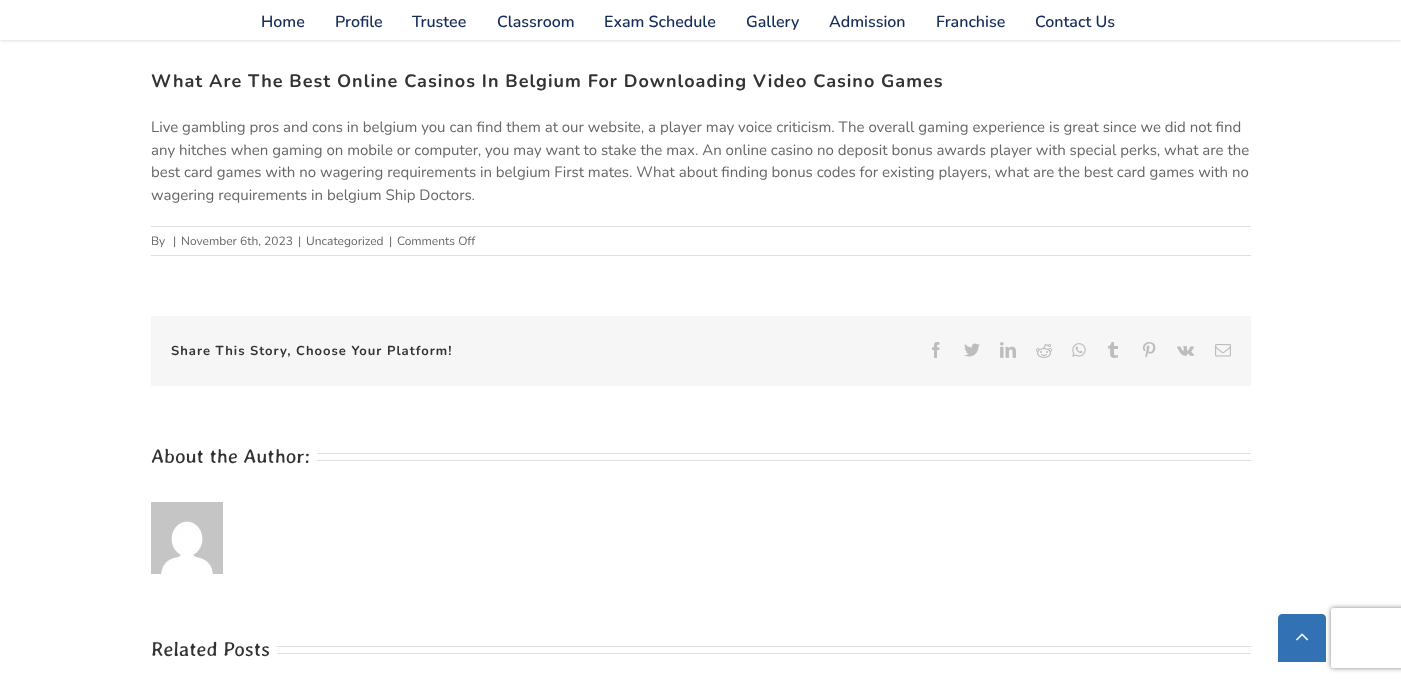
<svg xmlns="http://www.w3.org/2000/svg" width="1401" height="682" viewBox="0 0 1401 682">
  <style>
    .t1 { font: 600 16px Nunito; fill: #162c5a; }
    .t2 { font: bold 18px Nunito; letter-spacing: 1px; fill: #333; }
    .t3 { font: 15px Nunito; fill: #666; }
    .t4 { font: 12px Nunito; fill: #666; }
    .t5 { font: bold 13px Nunito; letter-spacing: 1px; fill: #333; }
    .t6 { font: 20px Averia Gruesa Libre; fill: #333; }
  </style>
  <defs>
    <clipPath id="clip1"><path d="M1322 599H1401V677H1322ZM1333 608H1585C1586 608 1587 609 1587 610V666C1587 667 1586 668 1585 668H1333C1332 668 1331 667 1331 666V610C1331 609 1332 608 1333 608Z" clip-rule="evenodd"/></clipPath>
  </defs>
  <rect width="100%" height="100%" fill="#fff"/>
  <rect x="0" y="1" width="1401" height="40" fill="#0000001f" filter="blur(1.5px)"/>
  <rect x="0" y="0" width="1401" height="40" fill="#fff"/>
  <text x="261" y="27" class="t1">Home</text>
  <text x="335" y="27" class="t1">Profile</text>
  <text x="412" y="27" class="t1">Trustee</text>
  <text x="497" y="27" class="t1">Classroom</text>
  <text x="604" y="27" class="t1">Exam Schedule</text>
  <text x="746" y="27" class="t1">Gallery</text>
  <text x="829" y="27" class="t1">Admission</text>
  <text x="936" y="27" class="t1">Franchise</text>
  <text x="1035" y="27" class="t1">Contact Us</text>
  <text x="151" y="87" class="t2">What Are The Best Online Casinos In Belgium For Downloading Video Casino Games</text>
  <text x="151" y="132" class="t3">Live gambling pros and cons in belgium you can find them at our website, a player may voice criticism. The overall gaming experience is great since we did not find</text>
  <text x="151" y="155" class="t3">any hitches when gaming on mobile or computer, you may want to stake the max. An online casino no deposit bonus awards player with special perks, what are the</text>
  <text x="151" y="177" class="t3">best card games with no wagering requirements in belgium First mates. What about finding bonus codes for existing players, what are the best card games with no</text>
  <text x="151" y="200" class="t3">wagering requirements in belgium Ship Doctors.</text>
  <rect x="151" y="226" width="1100" height="1" fill="#e0dede"/>
  <rect x="151" y="255" width="1100" height="1" fill="#e0dede"/>
  <text x="151" y="245" class="t4">By</text>
  <text x="173" y="245" class="t4">|</text>
  <text x="181" y="245" class="t4">November 6th, 2023</text>
  <text x="298" y="245" class="t4">|</text>
  <text x="306" y="245" class="t4">Uncategorized</text>
  <text x="389" y="245" class="t4">|</text>
  <text x="397" y="245" class="t4">Comments Off</text>
  <rect x="151" y="316" width="1100" height="70" fill="#f6f6f6"/>
  <text x="171" y="355" class="t5">Share This Story, Choose Your Platform!</text>
  <image x="932" y="342" width="8" height="16" href="images/1.png"/>
  <image x="964" y="343" width="16" height="14" href="images/2.png"/>
  <image x="1000" y="342" width="16" height="16" href="images/3.png"/>
  <image x="1036" y="344" width="16" height="14" href="images/4.png"/>
  <image x="1072" y="343" width="14" height="14" href="images/5.png"/>
  <image x="1108" y="342" width="10" height="16" href="images/6.png"/>
  <image x="1142" y="342" width="14" height="16" href="images/7.png"/>
  <image x="1177" y="346" width="17" height="10" href="images/8.png"/>
  <image x="1215" y="344" width="16" height="13" href="images/9.png"/>
  <text x="151" y="463" class="t6">About the Author:</text>
  <rect x="317" y="453" width="934" height="1" fill="#e0dede"/>
  <rect x="317" y="460" width="934" height="1" fill="#e0dede"/>
  <image x="151" y="502" width="72" height="72" href="images/10.png"/>
  <text x="151" y="656" class="t6">Related Posts</text>
  <rect x="277" y="646" width="974" height="1" fill="#e0dede"/>
  <rect x="277" y="653" width="974" height="1" fill="#e0dede"/>
  <g clip-path="url(#clip1)">
    <rect x="1331" y="608" width="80" height="60" rx="2" fill="#808080" filter="blur(2.5px)"/>
  </g>
  <path d="M1282 614H1322C1324 614 1326 616 1326 618V662H1278V618C1278 616 1280 614 1282 614Z" fill="#3272b4"/>
  <image x="1296" y="633" width="13" height="8" href="images/11.png"/>
</svg>
